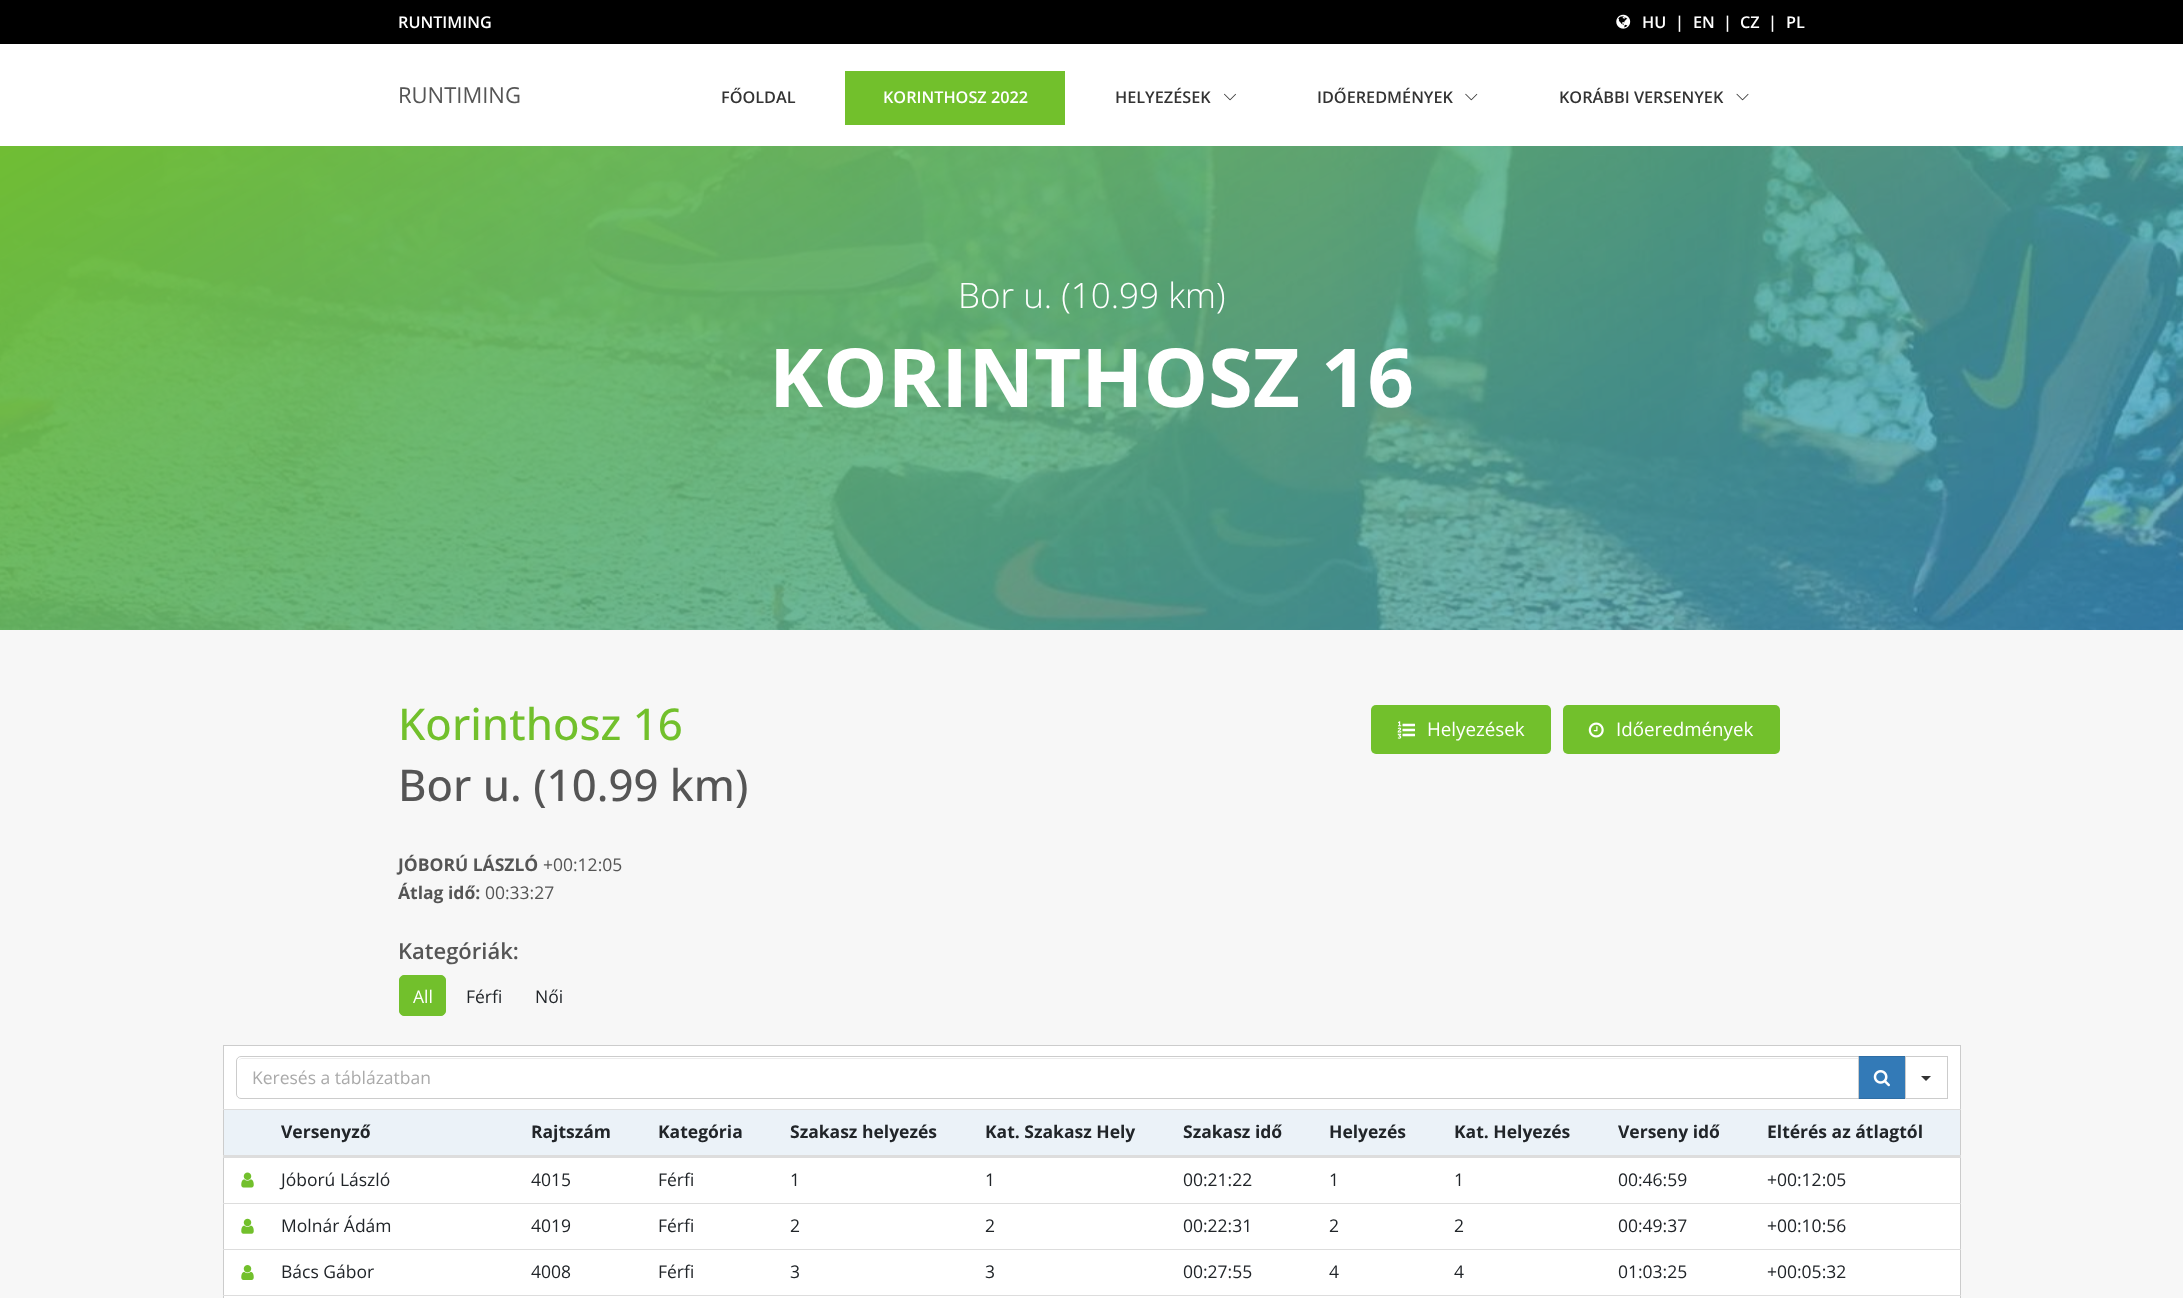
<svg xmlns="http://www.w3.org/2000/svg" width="2183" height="1298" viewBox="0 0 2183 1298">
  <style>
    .t1 { font: 600 16.25px Open Sans; fill: #fff; }
    .t2 { font: 22px Open Sans; fill: #555; }
    .t3 { font: 600 16.25px Open Sans; fill: #333; }
    .t4 { font: 300 35px Open Sans; fill: #fff; }
    .t5 { font: bold 81.25px Open Sans; fill: #fff; }
    .t6 { font: 500 43.75px Open Sans; fill: #72c02c; }
    .t7 { font: 500 43.75px Open Sans; fill: #555; }
    .t8 { font: 18.75px Open Sans; fill: #fff; }
    .t9 { font: bold 17.5px Open Sans; fill: #555; }
    .t10 { font: 17.5px Open Sans; fill: #555; }
    .t11 { font: 600 22px Open Sans; fill: #555; }
    .t12 { font: 17.5px Open Sans; fill: #fff; }
    .t13 { font: 17.5px Open Sans; fill: #212529; }
    .t14 { font: 17.5px Open Sans; fill: #aaa; }
    .t15 { font: bold 17.5px Open Sans; fill: #212529; }
  </style>
  <rect width="100%" height="100%" fill="#fff"/>
  <rect x="0" y="0" width="2183" height="44" fill="#000"/>
  <text x="398" y="28" class="t1">RUNTIMING</text>
  <image x="1616" y="14" width="15" height="15" href="images/1.png"/>
  <text x="1642" y="28" class="t1">HU</text>
  <text x="1675" y="28" class="t1">|</text>
  <text x="1693" y="28" class="t1">EN</text>
  <text x="1723" y="28" class="t1">|</text>
  <text x="1740" y="28" class="t1">CZ</text>
  <text x="1768" y="28" class="t1">|</text>
  <text x="1786" y="28" class="t1">PL</text>
  <text x="398" y="103" class="t2">RUNTIMING</text>
  <text x="721" y="103" class="t3">FŐOLDAL</text>
  <rect x="845" y="71" width="220" height="54" fill="#72c02c"/>
  <text x="883" y="103" class="t1">KORINTHOSZ 2022</text>
  <text x="1115" y="103" class="t3">HELYEZÉSEK</text>
  <image x="1224" y="93" width="12" height="8" href="images/2.png"/>
  <text x="1317" y="103" class="t3">IDŐEREDMÉNYEK</text>
  <image x="1465" y="93" width="13" height="8" href="images/3.png"/>
  <text x="1559" y="103" class="t3">KORÁBBI VERSENYEK</text>
  <image x="1736" y="93" width="13" height="8" href="images/4.png"/>
  <image x="0" y="146" width="2183" height="484" href="images/5.png"/>
  <text x="958" y="308" class="t4">Bor u. (10.99 km)</text>
  <text x="769" y="407" class="t5">KORINTHOSZ 16</text>
  <rect x="0" y="630" width="2183" height="668" fill="#f7f7f7"/>
  <text x="398" y="740" class="t6">Korinthosz 16</text>
  <text x="398" y="801" class="t7">Bor u. (10.99 km)</text>
  <rect x="1371" y="705" width="180" height="49" rx="5" fill="#72c02c"/>
  <image x="1397" y="721" width="18" height="18" href="images/6.png"/>
  <text x="1427" y="736" class="t8">Helyezések</text>
  <rect x="1563" y="705" width="217" height="49" rx="5" fill="#72c02c"/>
  <image x="1588" y="722" width="16" height="16" href="images/7.png"/>
  <text x="1616" y="736" class="t8">Időeredmények</text>
  <text x="398" y="871" class="t9">JÓBORÚ LÁSZLÓ</text>
  <text x="543" y="871" class="t10">+00:12:05</text>
  <text x="398" y="899" class="t9">Átlag idő:</text>
  <text x="485" y="899" class="t10">00:33:27</text>
  <text x="398" y="959" class="t11">Kategóriák:</text>
  <rect x="399.5" y="975.5" width="46" height="40" rx="4.5" fill="#72c02c" stroke="#72c02c"/>
  <text x="413" y="1003" class="t12">All</text>
  <text x="466" y="1003" class="t13">Férfi</text>
  <text x="535" y="1003" class="t13">Női</text>
  <rect x="223.5" y="1045.5" width="1737" height="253" fill="#fff" stroke="#ccc"/>
  <path d="M241 1059H1858V1058H242C241 1058 239 1059 239 1060Z" fill="#ececec"/>
  <rect x="1858.5" y="1056.5" width="47" height="42" fill="#337ab7" stroke="#2e6da4"/>
  <path d="M241 1056.5H1858.5V1098.5H241C238.5 1098.5 236.5 1096.5 236.5 1094V1061C236.5 1058.5 238.5 1056.5 241 1056.5Z" fill="none" stroke="#ccc"/>
  <text x="252" y="1084" class="t14">Keresés a táblázatban</text>
  <image x="1873" y="1070" width="17" height="17" href="images/8.png"/>
  <rect x="1905.5" y="1056.5" width="42" height="42" fill="none" stroke="#ccc"/>
  <path d="M1921 1076H1931L1926 1081Z" fill="#333"/>
  <rect x="224" y="1110" width="1736" height="45" fill="#ebf2f8"/>
  <text x="281" y="1138" class="t15">Versenyző</text>
  <text x="531" y="1138" class="t15">Rajtszám</text>
  <text x="658" y="1138" class="t15">Kategória</text>
  <text x="790" y="1138" class="t15">Szakasz helyezés</text>
  <text x="985" y="1138" class="t15">Kat. Szakasz Hely</text>
  <text x="1183" y="1138" class="t15">Szakasz idő</text>
  <text x="1329" y="1138" class="t15">Helyezés</text>
  <text x="1454" y="1138" class="t15">Kat. Helyezés</text>
  <text x="1618" y="1138" class="t15">Verseny idő</text>
  <rect x="223" y="1109" width="1738" height="1" fill="#ddd"/>
  <rect x="223" y="1155" width="1738" height="3" fill="#ddd"/>
  <text x="1767" y="1138" class="t15">Eltérés az átlagtól</text>
  <image x="241" y="1172" width="13" height="16" href="images/9.png"/>
  <text x="281" y="1186" class="t13">Jóború László</text>
  <text x="531" y="1186" class="t13">4015</text>
  <text x="658" y="1186" class="t13">Férfi</text>
  <text x="790" y="1186" class="t13">1</text>
  <text x="985" y="1186" class="t13">1</text>
  <text x="1183" y="1186" class="t13">00:21:22</text>
  <text x="1329" y="1186" class="t13">1</text>
  <text x="1454" y="1186" class="t13">1</text>
  <text x="1618" y="1186" class="t13">00:46:59</text>
  <text x="1767" y="1186" class="t13">+00:12:05</text>
  <image x="241" y="1218" width="13" height="16" href="images/10.png"/>
  <text x="281" y="1232" class="t13">Molnár Ádám</text>
  <text x="531" y="1232" class="t13">4019</text>
  <text x="658" y="1232" class="t13">Férfi</text>
  <text x="790" y="1232" class="t13">2</text>
  <text x="985" y="1232" class="t13">2</text>
  <text x="1183" y="1232" class="t13">00:22:31</text>
  <text x="1329" y="1232" class="t13">2</text>
  <text x="1454" y="1232" class="t13">2</text>
  <text x="1618" y="1232" class="t13">00:49:37</text>
  <rect x="223" y="1203" width="1738" height="1" fill="#ddd"/>
  <text x="1767" y="1232" class="t13">+00:10:56</text>
  <image x="241" y="1265" width="13" height="15" href="images/11.png"/>
  <text x="281" y="1278" class="t13">Bács Gábor</text>
  <text x="531" y="1278" class="t13">4008</text>
  <text x="658" y="1278" class="t13">Férfi</text>
  <text x="790" y="1278" class="t13">3</text>
  <text x="985" y="1278" class="t13">3</text>
  <text x="1183" y="1278" class="t13">00:27:55</text>
  <text x="1329" y="1278" class="t13">4</text>
  <text x="1454" y="1278" class="t13">4</text>
  <text x="1618" y="1278" class="t13">01:03:25</text>
  <rect x="223" y="1249" width="1738" height="1" fill="#ddd"/>
  <text x="1767" y="1278" class="t13">+00:05:32</text>
  <rect x="223" y="1295" width="1738" height="1" fill="#ddd"/>
</svg>
